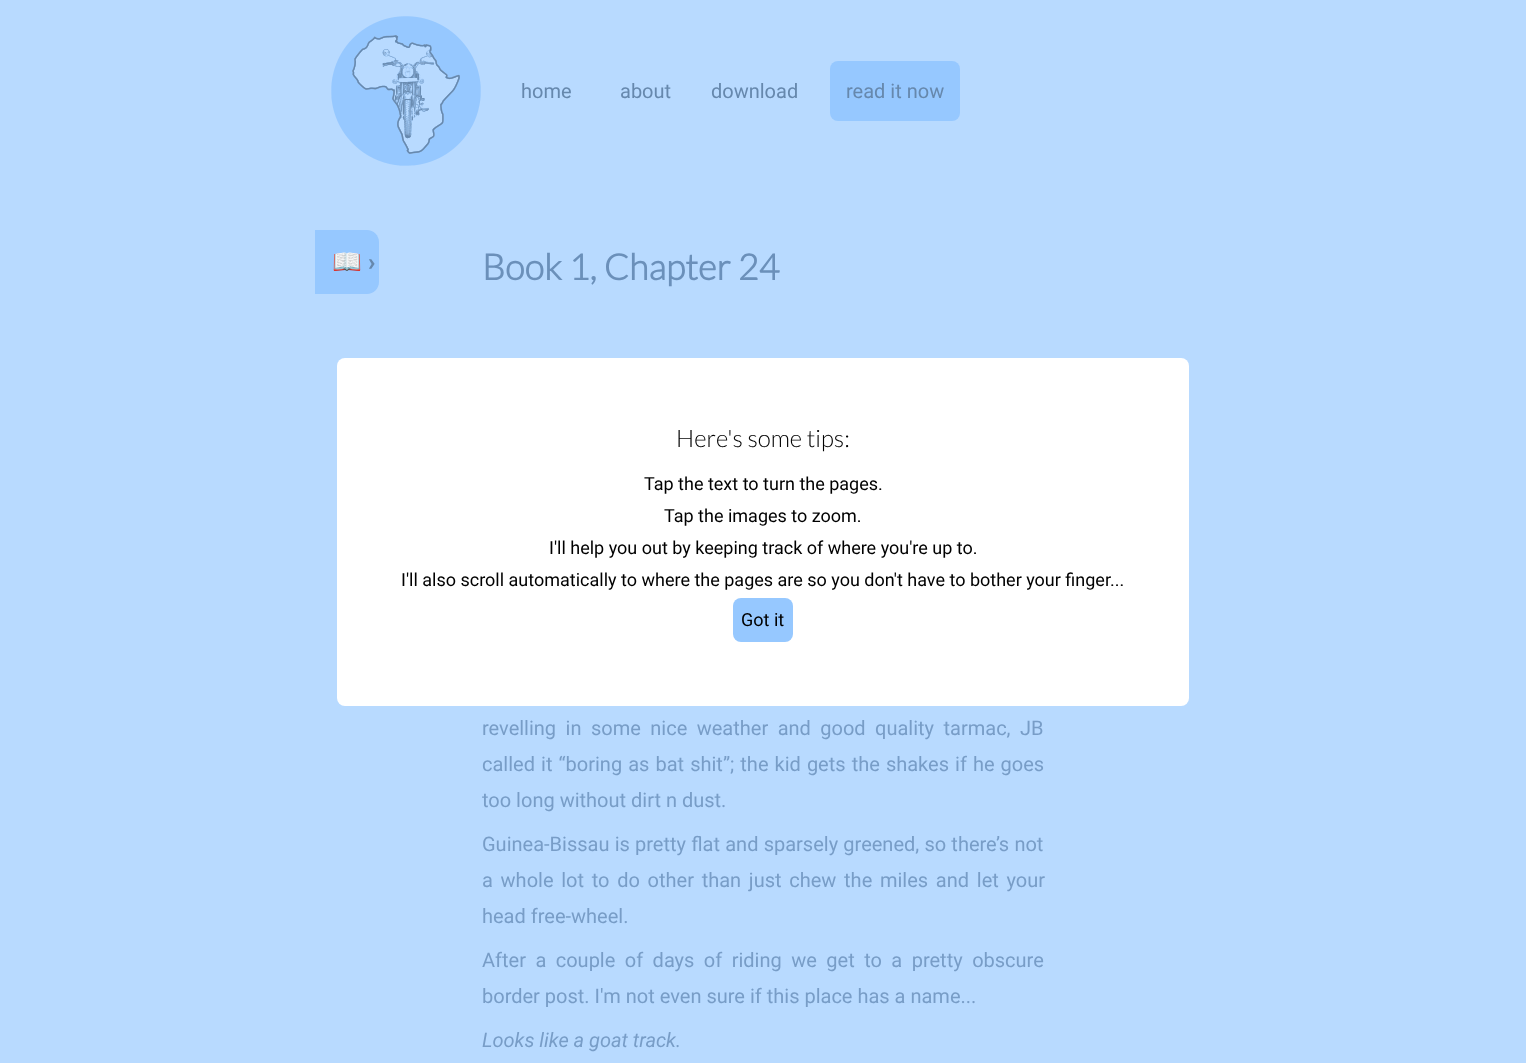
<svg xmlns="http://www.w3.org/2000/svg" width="1526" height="1063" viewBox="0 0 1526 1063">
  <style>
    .t1 { font: 20px Roboto; fill: #6688ad; }
    .t2 { font: 24px Noto Color Emoji; fill: #6688ad; }
    .t3 { font: 900 24px Roboto; fill: #6688ad; }
    .t4 { font: bold 36px Lato; fill: #6b90ba; }
    .t5 { font: 20px Roboto; fill: #789dc7; }
    .t6 { font: italic 20px Roboto; fill: #789dc7; }
    .t7 { font: 300 24px Lato; fill: #000; }
    .t8 { font: 18px Roboto; fill: #000; }
  </style>
  <rect width="100%" height="100%" fill="#b8daff"/>
  <image x="331" y="16" width="150" height="150" href="images/1.png"/>
  <text x="521" y="98" class="t1">home</text>
  <text x="620" y="98" class="t1">about</text>
  <text x="711" y="98" class="t1">download</text>
  <rect x="830" y="61" width="130" height="60" rx="8" fill="#96c8ff"/>
  <text x="846" y="98" class="t1">read it now</text>
  <path d="M315 230H367C373.5 230 379 235.5 379 242V282C379 288.5 373.5 294 367 294H315Z" fill="#96c8ff"/>
  <text x="332" y="270" class="t2">📖</text>
  <text x="368" y="270" class="t3">›</text>
  <text x="482" y="280" class="t4">Book 1, Chapter 24</text>
  <text x="482" y="735" word-spacing="4.5" class="t5">revelling in some nice weather and good quality tarmac, JB</text>
  <text x="482" y="771" word-spacing="1.1" class="t5">called it “boring as bat shit”; the kid gets the shakes if he goes</text>
  <text x="482" y="807" class="t5">too long without dirt n dust.</text>
  <text x="482" y="851" word-spacing="0.25" class="t5">Guinea-Bissau is pretty flat and sparsely greened, so there’s not</text>
  <text x="482" y="887" word-spacing="2.75" class="t5">a whole lot to do other than just chew the miles and let your</text>
  <text x="482" y="923" class="t5">head free-wheel.</text>
  <text x="482" y="967" word-spacing="4.5" class="t5">After a couple of days of riding we get to a pretty obscure</text>
  <text x="482" y="1003" class="t5">border post. I'm not even sure if this place has a name...</text>
  <text x="482" y="1047" class="t6">Looks like a goat track.</text>
  <rect x="337" y="358" width="852" height="348" rx="8" fill="#fff"/>
  <text x="676" y="447" class="t7">Here's some tips:</text>
  <text x="644" y="490" class="t8">Tap the text to turn the pages.</text>
  <text x="664" y="522" class="t8">Tap the images to zoom.</text>
  <text x="549" y="554" class="t8">I'll help you out by keeping track of where you're up to.</text>
  <text x="401" y="586" class="t8">I'll also scroll automatically to where the pages are so you don't have to bother your finger...</text>
  <rect x="733" y="598" width="60" height="44" rx="8" fill="#96c8ff"/>
  <text x="741" y="626" class="t8">Got it</text>
</svg>
